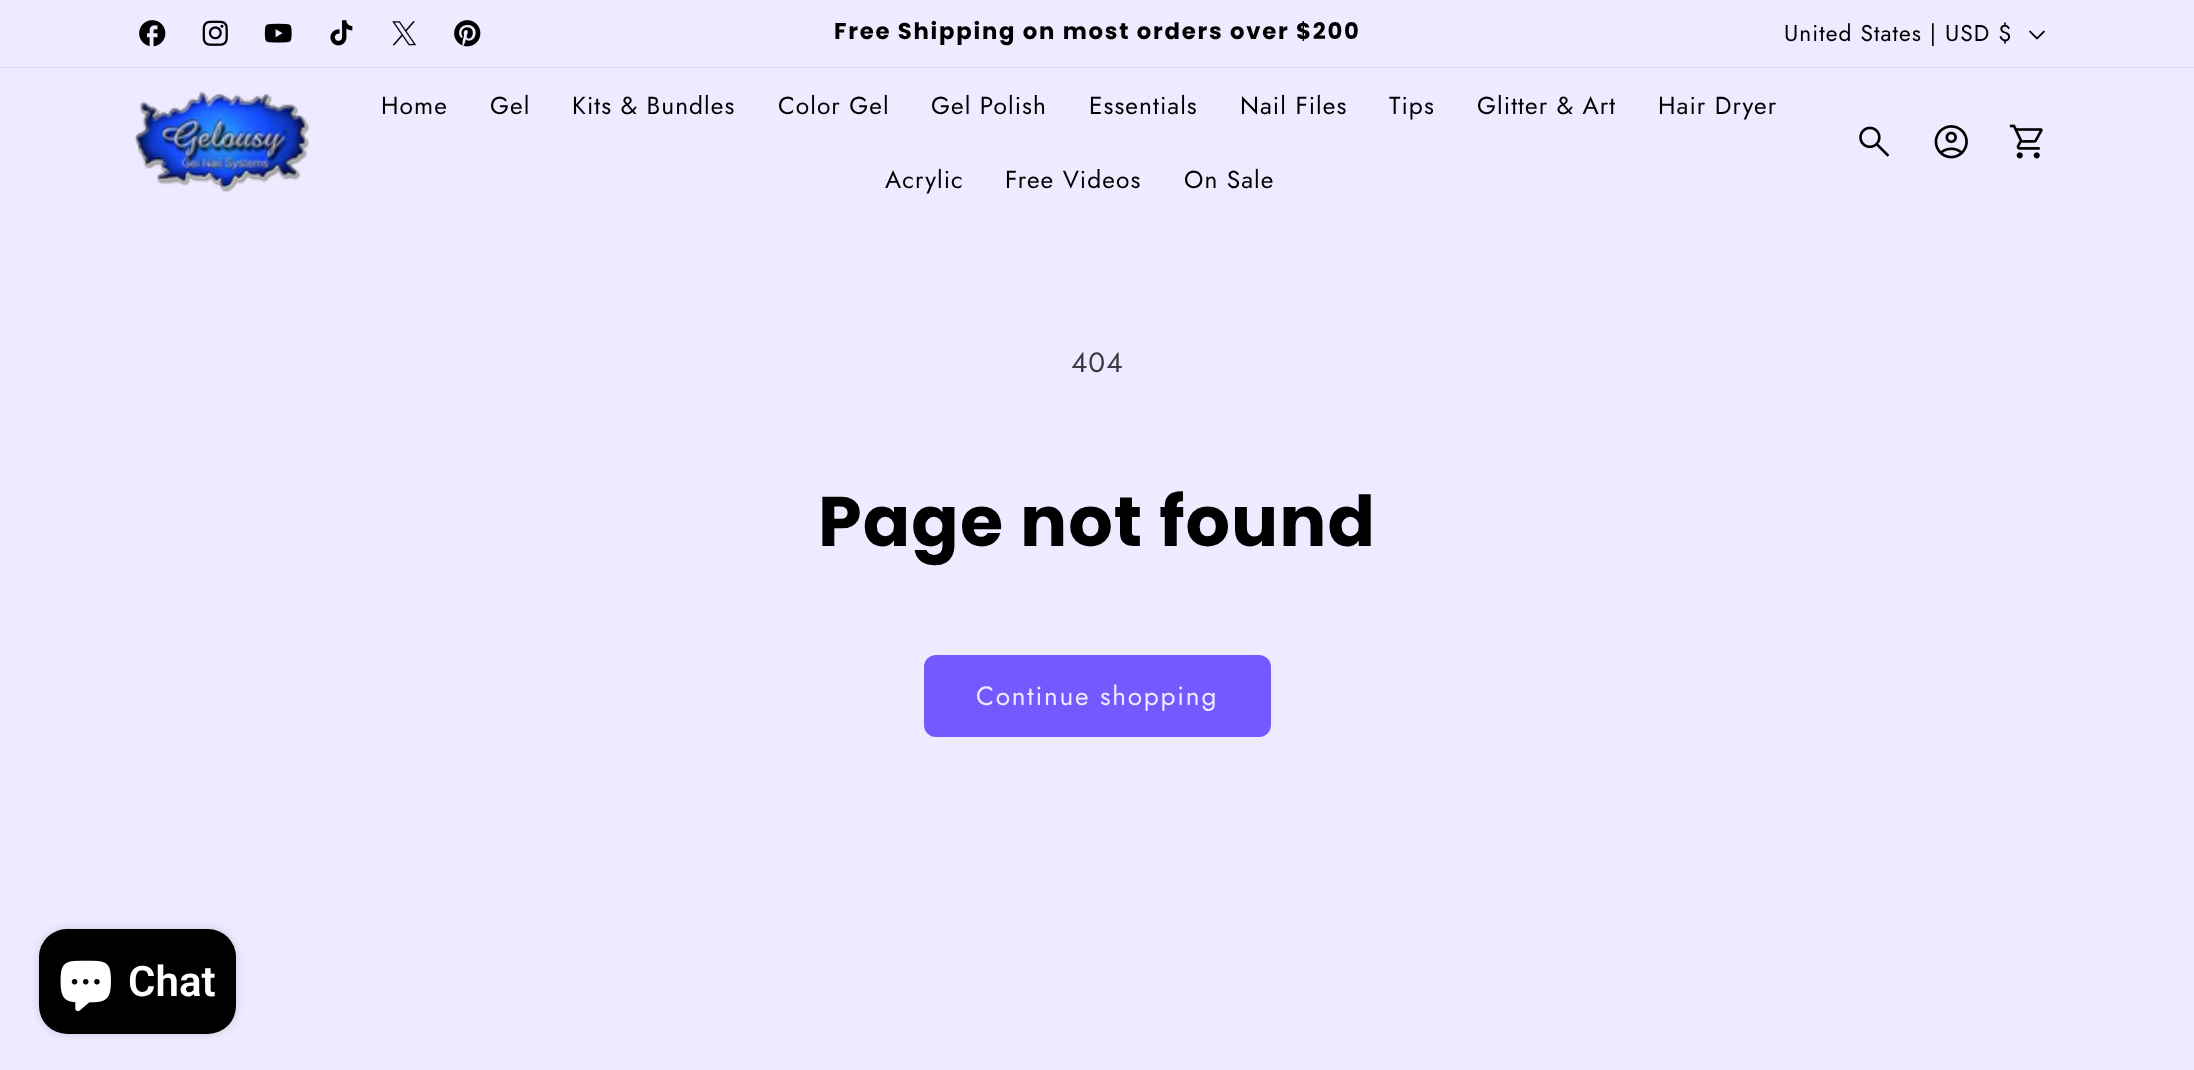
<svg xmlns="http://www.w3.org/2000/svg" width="2194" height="1070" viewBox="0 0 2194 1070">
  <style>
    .t1 { font: bold 22.75px Poppins; letter-spacing: 1.75px; fill: #000; }
    .t2 { font: 22.75px Jost; letter-spacing: 1.05px; fill: #000; }
    .t3 { font: 24.5px Jost; letter-spacing: 1.05px; fill: #000; }
    .t4 { font: 28px Jost; letter-spacing: 1.05px; fill: #3c3b40; }
    .t5 { font: bold 70px Poppins; letter-spacing: 1.05px; fill: #000; }
    .t6 { font: 26.25px Jost; letter-spacing: 1.75px; fill: #eeeaff; }
    .t7 { font: 600 42px Roboto; fill: #fff; }
  </style>
  <rect width="100%" height="100%" fill="#eeeaff"/>
  <rect x="0" y="67" width="2194" height="1" fill="#dbd7eb"/>
  <image x="139" y="20" width="27" height="27" href="images/1.png"/>
  <image x="202" y="20" width="26" height="26" href="images/2.png"/>
  <image x="264" y="23" width="28" height="20" href="images/3.png"/>
  <image x="330" y="20" width="23" height="26" href="images/4.png"/>
  <image x="392" y="21" width="25" height="25" href="images/5.png"/>
  <image x="454" y="20" width="27" height="27" href="images/6.png"/>
  <text x="834" y="39" class="t1">Free Shipping on most orders over $200</text>
  <text x="1784" y="41" class="t2">United States | USD $</text>
  <image x="2029" y="30" width="16" height="10" href="images/7.png"/>
  <image x="134" y="91" width="176" height="102" href="images/8.png"/>
  <text x="381" y="114" class="t3">Home</text>
  <text x="490" y="114" class="t3">Gel</text>
  <text x="572" y="114" class="t3">Kits &amp; Bundles</text>
  <text x="778" y="114" class="t3">Color Gel</text>
  <text x="931" y="114" class="t3">Gel Polish</text>
  <text x="1089" y="114" class="t3">Essentials</text>
  <text x="1240" y="114" class="t3">Nail Files</text>
  <text x="1389" y="114" class="t3">Tips</text>
  <text x="1477" y="114" class="t3">Glitter &amp; Art</text>
  <text x="1658" y="114" class="t3">Hair Dryer</text>
  <text x="885" y="188" class="t3">Acrylic</text>
  <text x="1005" y="188" class="t3">Free Videos</text>
  <text x="1184" y="188" class="t3">On Sale</text>
  <image x="1859" y="126" width="31" height="31" href="images/9.png"/>
  <image x="1934" y="125" width="34" height="34" href="images/10.png"/>
  <image x="2009" y="124" width="34" height="35" href="images/11.png"/>
  <text x="1071" y="372" class="t4">404</text>
  <text x="818" y="546" class="t5">Page not found</text>
  <rect x="924" y="655" width="347" height="82" rx="12" fill="#7559ff"/>
  <text x="976" y="705" class="t6">Continue shopping</text>
  <rect x="39" y="929" width="197" height="105" rx="28" fill="#00000026" filter="blur(4.5px)"/>
  <rect x="39" y="929" width="197" height="105" rx="28" fill="#000"/>
  <image x="60" y="960" width="51" height="52" href="images/12.png"/>
  <text x="128" y="996" class="t7">Chat</text>
</svg>
